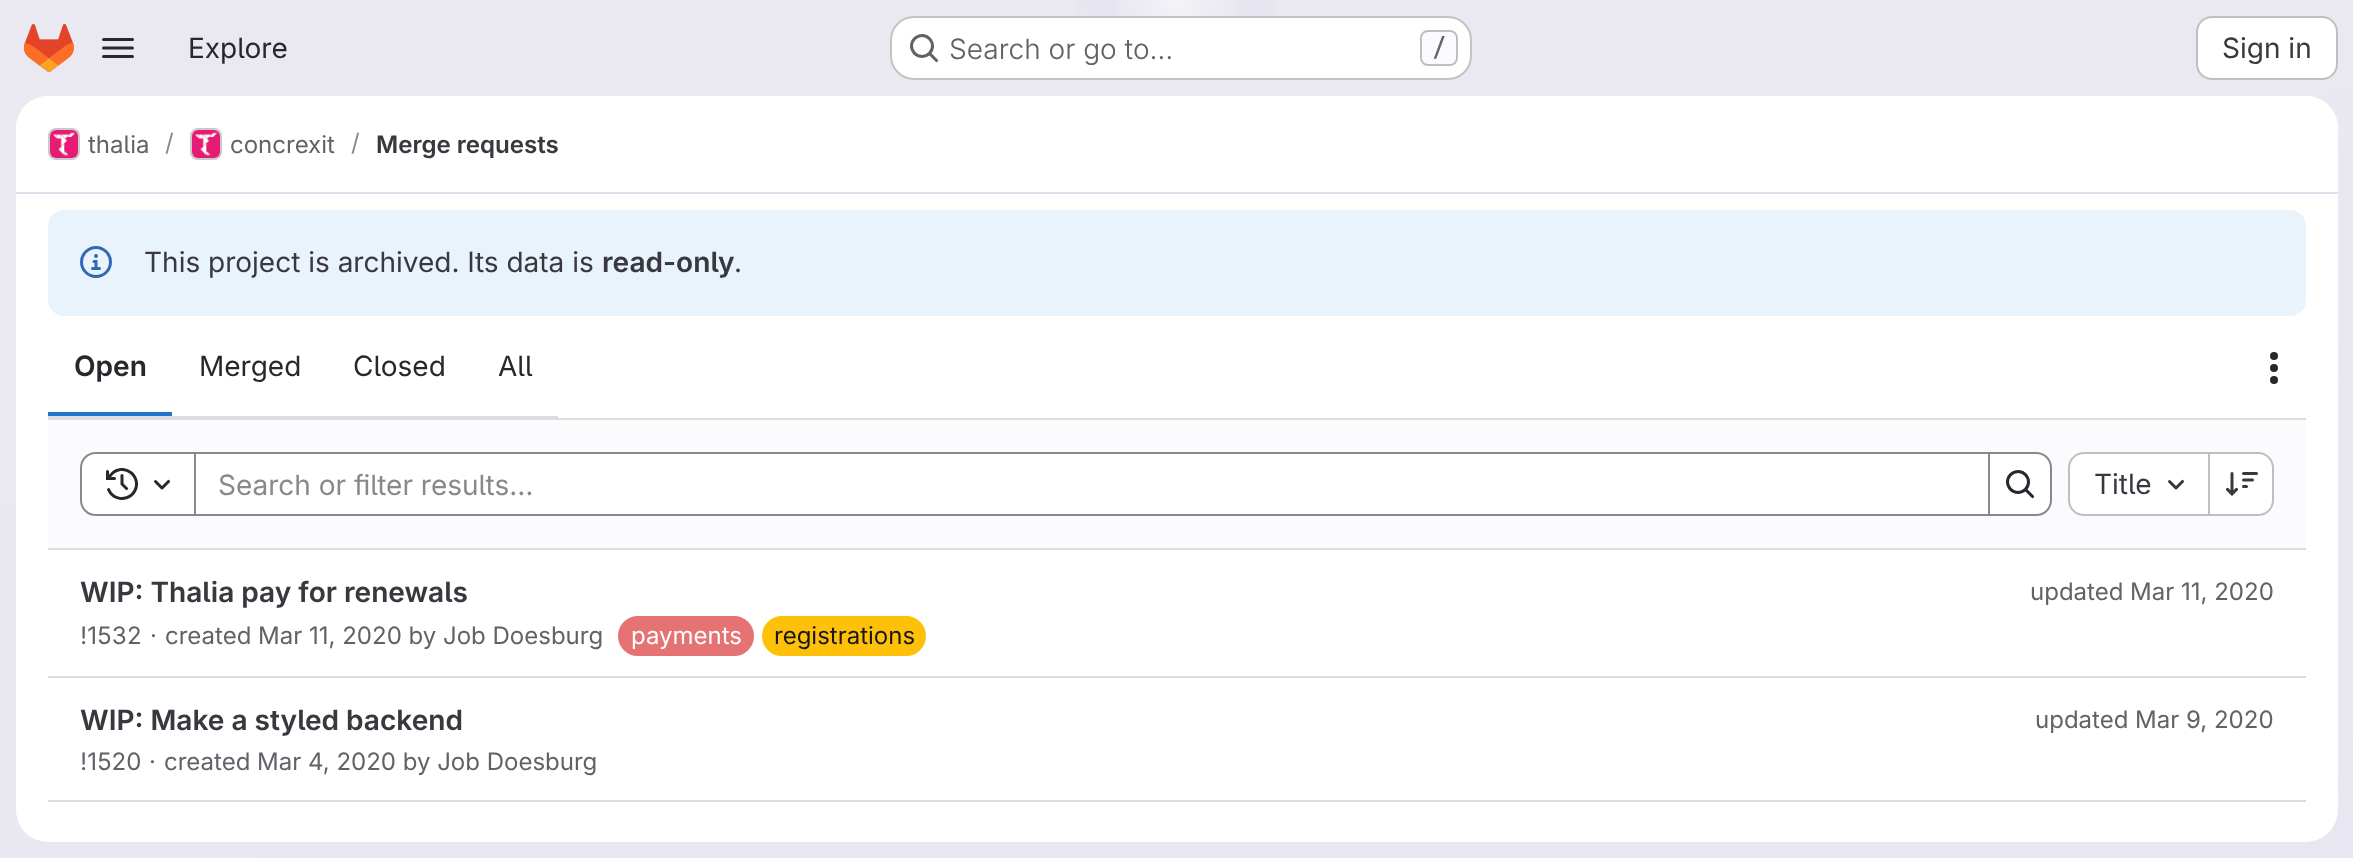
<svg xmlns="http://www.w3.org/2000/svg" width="2353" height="858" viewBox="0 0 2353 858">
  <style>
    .t1 { font: 28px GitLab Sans; fill: #28272d; }
    .t2 { font: 300 28px GitLab Sans; fill: #626168; }
    .t3 { font: 500 24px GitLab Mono; fill: #626168; }
    .t4 { font: 28px GitLab Sans; fill: #3a383f; }
    .t5 { font: 24px GitLab Sans; fill: #626168; }
    .t6 { font: 24px GitLab Sans; fill: #89888d; }
    .t7 { font: 600 24px GitLab Sans; fill: #3a383f; }
    .t8 { font: 600 28px GitLab Sans; fill: #3a383f; }
    .t9 { font: 600 28px GitLab Sans; fill: #28272d; }
    .t10 { font: 28px GitLab Sans; fill: #89888d; }
    .t11 { font: 24px GitLab Sans; fill: #fff; }
    .t12 { font: 24px GitLab Sans; fill: #18171d; }
  </style>
  <defs>
    <linearGradient id="g1" gradientUnits="userSpaceOnUse" x1="1286" y1="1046" x2="1068" y2="-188"><stop offset="0" stop-color="#e8e6f0"/><stop offset="0.7" stop-color="#eae9f2"/></linearGradient>
    <radialGradient id="g2" gradientUnits="userSpaceOnUse" cx="0" cy="0" r="1" gradientTransform="matrix(1177 0 0 858 1177 0)"><stop offset="0" stop-color="#e4e2ed"/><stop offset="0.12" stop-color="#e4e2ed" stop-opacity="0"/></radialGradient>
    <radialGradient id="g3" gradientUnits="userSpaceOnUse" cx="0" cy="0" r="1" gradientTransform="matrix(1177 0 0 858 1177 0)"><stop offset="0" stop-color="#e4e2ec"/><stop offset="0.08" stop-color="#e4e2ec" stop-opacity="0"/></radialGradient>
    <radialGradient id="g4" gradientUnits="userSpaceOnUse" cx="1177" cy="0" r="1457"><stop offset="0" stop-color="#fff" stop-opacity="0.6"/><stop offset="0.05" stop-color="#fff" stop-opacity="0"/></radialGradient>
  </defs>
  <rect width="100%" height="100%" fill="#fff"/>
  <rect x="0" y="0" width="2353" height="858" fill="url(#g1)"/>
  <rect x="1076" y="0" width="202" height="74" fill="url(#g2)"/>
  <rect x="1155" y="4" width="44" height="5" fill="url(#g3)"/>
  <rect x="1116" y="0" width="122" height="16" fill="url(#g4)"/>
  <image x="24" y="24" width="50" height="48" href="images/1.png"/>
  <image x="102" y="38" width="32" height="20" href="images/2.png"/>
  <text x="188" y="58" class="t1">Explore</text>
  <rect x="890" y="16" width="582" height="64" rx="24" fill="#fff"/>
  <rect x="891" y="17" width="580" height="62" rx="23" fill="none" stroke="#0505063d" stroke-width="2"/>
  <image x="910" y="34" width="29" height="29" href="images/3.png"/>
  <text x="949" y="59" class="t2">Search or go to…</text>
  <rect x="1421" y="31" width="36" height="34" rx="7" fill="#fbfafd" stroke="#bfbfc3" stroke-width="2"/>
  <text x="1432" y="56" class="t3">/</text>
  <rect x="2197" y="17" width="140" height="62" rx="15" fill="#fff" stroke="#bfbfc3" stroke-width="2"/>
  <text x="2222" y="58" class="t4">Sign in</text>
  <rect x="16" y="96" width="2322" height="746" rx="32" fill="#fff"/>
  <path d="M48 96H2306C2323.5 96 2338 110.5 2338 128V194H16V128C16 110.5 30.5 96 48 96Z" fill="#fff"/>
  <rect x="16" y="192" width="2322" height="2" fill="#e1dfec"/>
  <rect x="49" y="129" width="30" height="30" rx="7" fill="none" stroke="#dcdcde" stroke-width="2"/>
  <image x="50" y="130" width="28" height="28" href="images/4.png"/>
  <rect x="49" y="129" width="30" height="30" rx="7" fill="none" stroke="#05050614" stroke-width="2"/>
  <text x="88" y="153" class="t5">thalia</text>
  <text x="165" y="151" class="t6">/</text>
  <rect x="191" y="129" width="30" height="30" rx="7" fill="none" stroke="#dcdcde" stroke-width="2"/>
  <image x="192" y="130" width="28" height="28" href="images/5.png"/>
  <rect x="191" y="129" width="30" height="30" rx="7" fill="none" stroke="#05050614" stroke-width="2"/>
  <text x="230" y="153" class="t5">concrexit</text>
  <text x="351" y="151" class="t6">/</text>
  <text x="376" y="153" class="t7">Merge requests</text>
  <rect x="48" y="210" width="2258" height="106" rx="16" fill="#e9f3fc"/>
  <image x="80" y="246" width="32" height="32" href="images/6.png"/>
  <text x="144" y="272" class="t4">This project is archived. Its data is</text>
  <text x="602" y="272" class="t8">read-only</text>
  <text x="734" y="272" class="t4">.</text>
  <rect x="48" y="418" width="2258" height="2" fill="#dcdcde"/>
  <rect x="48" y="416" width="510" height="2" fill="#dcdcde"/>
  <text x="74" y="376" class="t9">Open</text>
  <rect x="48" y="412" width="124" height="4" fill="#1f75cb"/>
  <text x="199" y="376" class="t1">Merged</text>
  <text x="353" y="376" class="t1">Closed</text>
  <text x="498" y="376" class="t1">All</text>
  <image x="2270" y="352" width="8" height="32" href="images/7.png"/>
  <rect x="48" y="420" width="2258" height="128" fill="#fbfafd"/>
  <rect x="48" y="548" width="2258" height="2" fill="#dcdcde"/>
  <rect x="195" y="453" width="1794" height="62" fill="#fff" stroke="#89888d" stroke-width="2"/>
  <path d="M96 453H195V515H96C87.5 515 81 508.5 81 500V468C81 459.5 87.5 453 96 453Z" fill="#fff" stroke="#89888d" stroke-width="2"/>
  <image x="106" y="468" width="32" height="32" href="images/8.png"/>
  <image x="154" y="479" width="17" height="11" href="images/9.png"/>
  <text x="218" y="495" class="t10">Search or filter results…</text>
  <path d="M1989 453H2036C2044.5 453 2051 459.5 2051 468V500C2051 508.5 2044.5 515 2036 515H1989Z" fill="#fff" stroke="#89888d" stroke-width="2"/>
  <image x="2006" y="470" width="29" height="29" href="images/10.png"/>
  <path d="M2084 454H2208V514H2084C2076.5 514 2070 507.5 2070 500V468C2070 460.5 2076.5 454 2084 454Z" fill="#fff"/>
  <path d="M2084 452H2208V516H2084C2075 516 2068 509 2068 500V468C2068 459 2075 452 2084 452ZM2084 454H2208V514H2084C2076 514 2070 508 2070 500V468C2070 460 2076 454 2084 454Z" fill="#bfbfc3" fill-rule="evenodd"/>
  <text x="2094" y="494" class="t4">Title</text>
  <image x="2168" y="479" width="17" height="11" href="images/11.png"/>
  <path d="M2210 454H2258C2265.5 454 2272 460.5 2272 468V500C2272 507.5 2265.5 514 2258 514H2210Z" fill="#fff"/>
  <path d="M2210 452H2258C2267 452 2274 459 2274 468V500C2274 509 2267 516 2258 516H2210ZM2210 454H2258C2266 454 2272 460 2272 468V500C2272 508 2266 514 2258 514H2210Z" fill="#bfbfc3" fill-rule="evenodd"/>
  <rect x="2208" y="452" width="2" height="64" fill="#bfbfc3"/>
  <image x="2226" y="472" width="32" height="24" href="images/12.png"/>
  <rect x="48" y="676" width="2258" height="2" fill="#dcdcde"/>
  <text x="80" y="602" class="t8">WIP: Thalia pay for renewals</text>
  <text x="80" y="644" class="t5">!1532</text>
  <text x="150" y="644" class="t5">·</text>
  <text x="165" y="644" class="t5">created Mar 11, 2020 by Job Doesburg</text>
  <rect x="620" y="618" width="132" height="36" rx="18" fill="#e57373" stroke="#e57373" stroke-width="4"/>
  <text x="631" y="644" class="t11">payments</text>
  <rect x="764" y="618" width="160" height="36" rx="18" fill="#ffc107" stroke="#ffc107" stroke-width="4"/>
  <text x="774" y="644" class="t12">registrations</text>
  <text x="2030" y="600" class="t5">updated Mar 11, 2020</text>
  <rect x="48" y="800" width="2258" height="2" fill="#dcdcde"/>
  <text x="80" y="730" class="t8">WIP: Make a styled backend</text>
  <text x="80" y="770" class="t5">!1520</text>
  <text x="149" y="770" class="t5">·</text>
  <text x="164" y="770" class="t5">created Mar 4, 2020 by Job Doesburg</text>
  <text x="2035" y="728" class="t5">updated Mar 9, 2020</text>
</svg>
